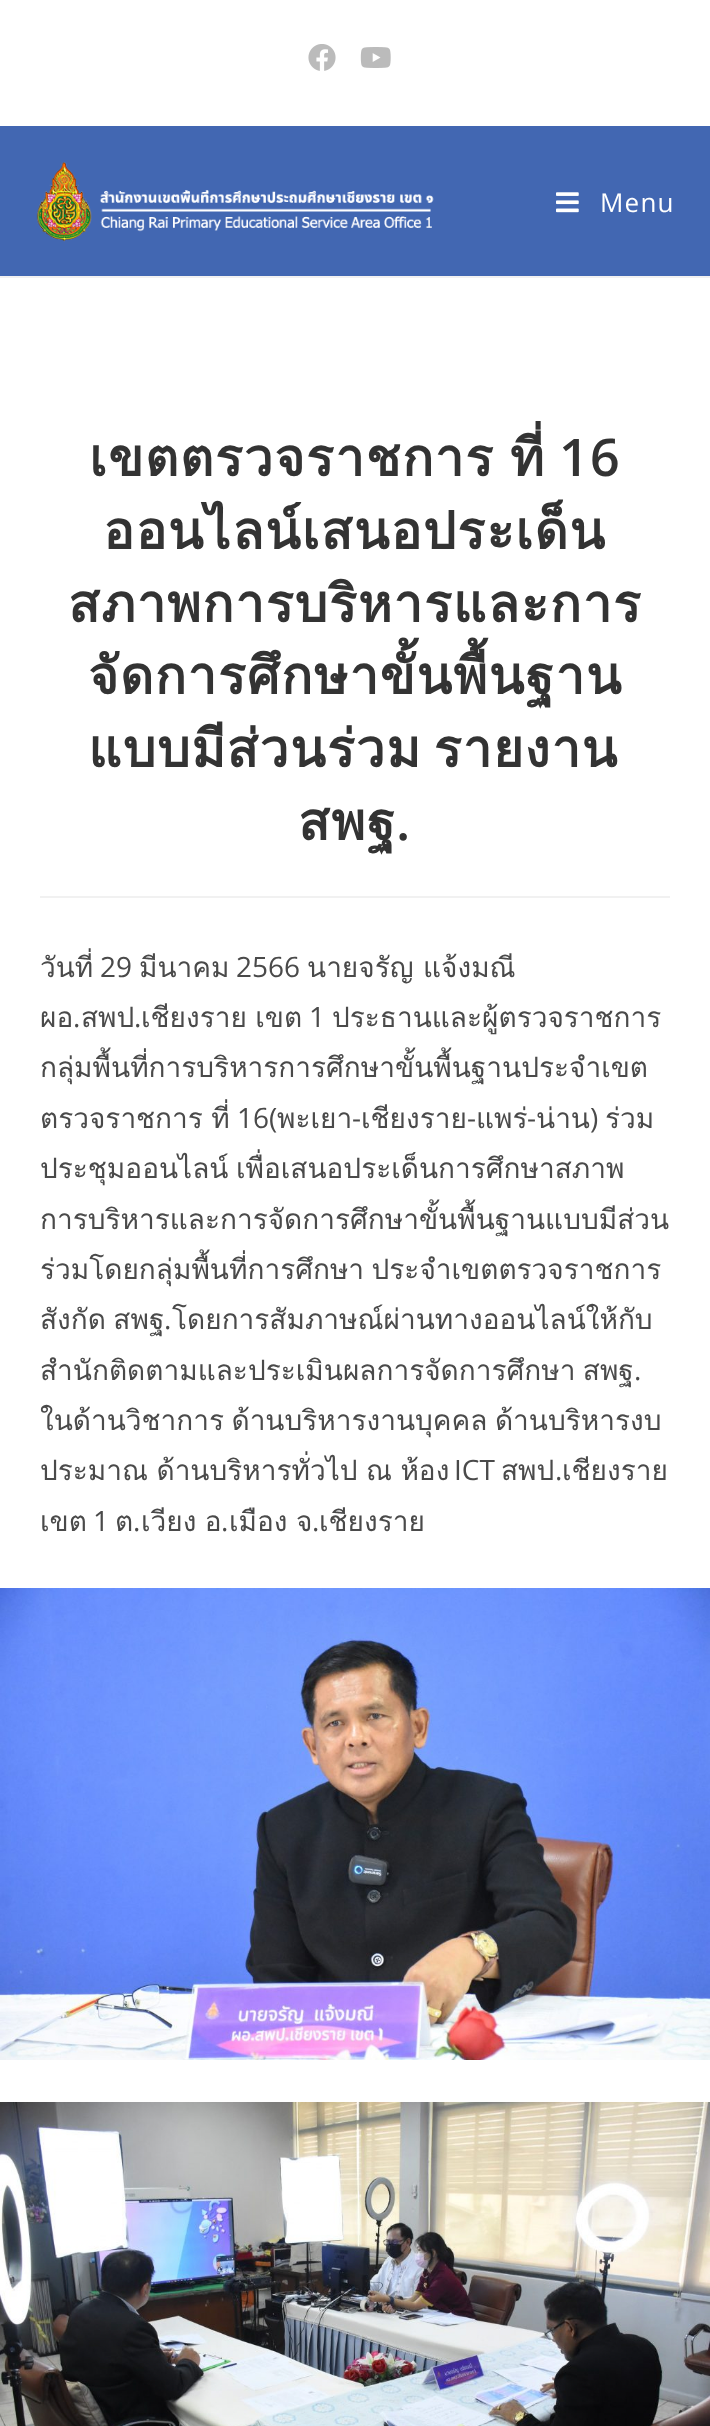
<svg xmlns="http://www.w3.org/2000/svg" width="710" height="2426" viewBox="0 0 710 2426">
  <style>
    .t1 { font: 26px Open Sans; letter-spacing: 1.2px; fill: #fff; }
    .t2 { font: bold 52px Loma; letter-spacing: 1.2px; fill: #333; }
    .t3 { font: 600 52px Open Sans; letter-spacing: 1.2px; fill: #333; }
    .t4 { font: 28px Loma; fill: #4a4a4a; }
    .t5 { font: 28px Open Sans; fill: #4a4a4a; }
  </style>
  <rect width="100%" height="100%" fill="#fff"/>
  <rect x="0" y="126" width="710" height="150" fill="#4267b2"/>
  <image x="308" y="44" width="28" height="27" href="images/1.png"/>
  <image x="360" y="47" width="31" height="21" href="images/2.png"/>
  <rect x="0" y="276" width="710" height="2" fill="#f1f1f1"/>
  <image x="36" y="162" width="398" height="80" href="images/3.png"/>
  <image x="556" y="192" width="23" height="21" href="images/4.png"/>
  <text x="600" y="212" class="t1">Menu</text>
  <rect x="40" y="896" width="630" height="2" fill="#f1f1f1"/>
  <text x="89" y="476" word-spacing="-3" class="t2">เขตตรวจราชการ ที่</text>
  <text x="559" y="476" class="t3">16</text>
  <text x="103" y="549" class="t2">ออนไลน์เสนอประเด็น</text>
  <text x="68" y="622" class="t2">สภาพการบริหารและการ</text>
  <text x="88" y="694" class="t2">จัดการศึกษาขั้นพื้นฐาน</text>
  <text x="88" y="767" word-spacing="-7" class="t2">แบบมีส่วนร่วม รายงาน</text>
  <text x="298" y="840" class="t2">สพฐ</text>
  <text x="396" y="840" class="t3">.</text>
  <text x="40" y="977" class="t4">วันที่</text>
  <text x="100" y="977" class="t5">29</text>
  <text x="139" y="977" class="t4">มีนาคม</text>
  <text x="236" y="977" class="t5">2566</text>
  <text x="307" y="977" class="t4">นายจรัญ แจ้งมณี</text>
  <text x="40" y="1027" class="t4">ผอ</text>
  <text x="73" y="1027" class="t5">.</text>
  <text x="81" y="1027" class="t4">สพป</text>
  <text x="134" y="1027" class="t5">.</text>
  <text x="141" y="1027" word-spacing="-1" class="t4">เชียงราย เขต</text>
  <text x="309" y="1027" class="t5">1</text>
  <text x="332" y="1027" class="t4">ประธานและผู้ตรวจราชการ</text>
  <text x="40" y="1077" class="t4">กลุ่มพื้นที่การบริหารการศึกษาขั้นพื้นฐานประจำเขต</text>
  <text x="40" y="1128" word-spacing="-1" class="t4">ตรวจราชการ ที่</text>
  <text x="237" y="1128" class="t5">16(</text>
  <text x="277" y="1128" class="t4">พะเยา</text>
  <text x="352" y="1128" class="t5">-</text>
  <text x="361" y="1128" class="t4">เชียงราย</text>
  <text x="476" y="1128" class="t4">แพร่</text>
  <text x="527" y="1128" class="t5">-</text>
  <text x="536" y="1128" class="t4">น่าน</text>
  <text x="590" y="1128" class="t5">)</text>
  <text x="605" y="1128" class="t4">ร่วม</text>
  <text x="467" y="1128" class="t5">-</text>
  <text x="40" y="1178" word-spacing="-2" class="t4">ประชุมออนไลน์ เพื่อเสนอประเด็นการศึกษาสภาพ</text>
  <text x="40" y="1229" class="t4">การบริหารและการจัดการศึกษาขั้นพื้นฐานแบบมีส่วน</text>
  <text x="40" y="1279" word-spacing="-2" class="t4">ร่วมโดยกลุ่มพื้นที่การศึกษา ประจำเขตตรวจราชการ</text>
  <text x="40" y="1329" word-spacing="-2" class="t4">สังกัด สพฐ</text>
  <text x="164" y="1329" class="t5">.</text>
  <text x="172" y="1329" class="t4">โดยการสัมภาษณ์ผ่านทางออนไลน์ให้กับ</text>
  <text x="40" y="1380" word-spacing="-2" class="t4">สำนักติดตามและประเมินผลการจัดการศึกษา สพฐ</text>
  <text x="634" y="1380" class="t5">.</text>
  <text x="40" y="1430" word-spacing="-2" class="t4">ในด้านวิชาการ ด้านบริหารงานบุคคล ด้านบริหารงบ</text>
  <text x="40" y="1480" word-spacing="-1" class="t4">ประมาณ ด้านบริหารทั่วไป ณ ห้อง</text>
  <text x="454" y="1480" class="t5">ICT</text>
  <text x="501" y="1480" class="t4">สพป</text>
  <text x="555" y="1480" class="t5">.</text>
  <text x="562" y="1480" class="t4">เชียงราย</text>
  <text x="40" y="1531" class="t4">เขต</text>
  <text x="93" y="1531" class="t5">1</text>
  <text x="115" y="1531" class="t4">ต</text>
  <text x="133" y="1531" class="t5">.</text>
  <text x="141" y="1531" word-spacing="-1" class="t4">เวียง อ</text>
  <text x="221" y="1531" class="t5">.</text>
  <text x="229" y="1531" word-spacing="-1" class="t4">เมือง จ</text>
  <text x="312" y="1531" class="t5">.</text>
  <text x="319" y="1531" class="t4">เชียงราย</text>
  <image x="0" y="1588" width="710" height="472" href="images/5.png"/>
  <image x="0" y="2102" width="710" height="324" href="images/6.png"/>
</svg>
